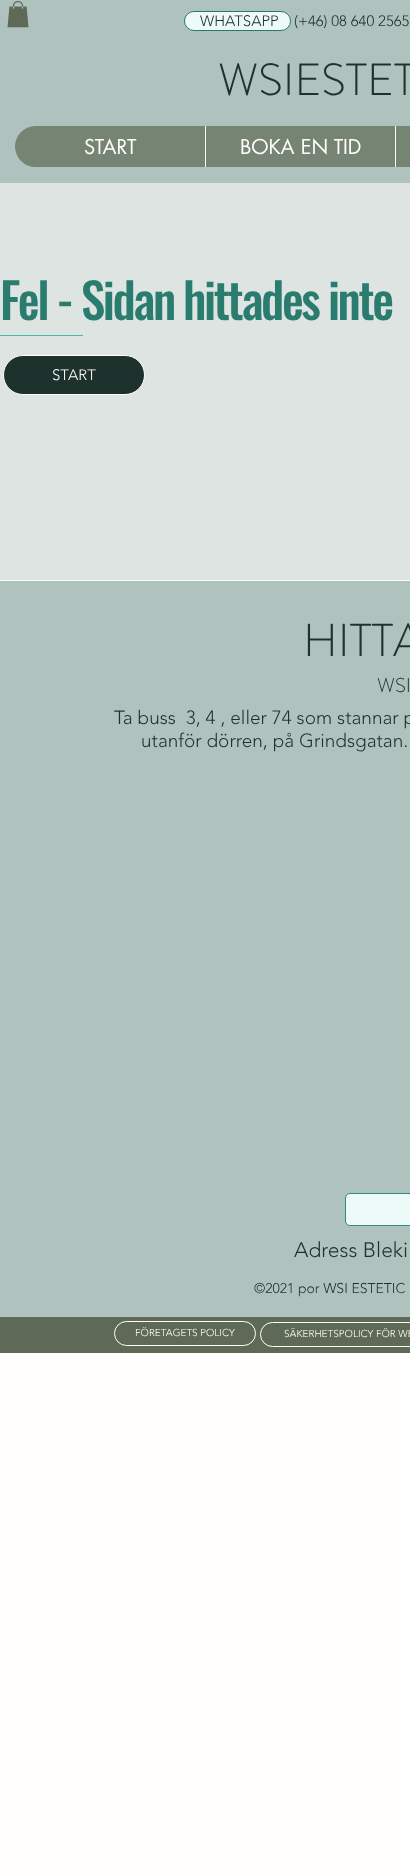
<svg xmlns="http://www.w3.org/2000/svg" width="410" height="1876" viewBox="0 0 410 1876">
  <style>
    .t1 { font: 300 15px 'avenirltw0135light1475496'; fill: #1e322d; }
    .t2 { font: 300 45px 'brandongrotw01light'; fill: #1e322d; }
    .t3 { font: 20px futura; fill: #fffefc; }
    .t4 { font: 500 49px Oswald; letter-spacing: -2.45px; fill: #2a7c6f; }
    .t5 { font: 300 15px 'avenirltw0135light1475496'; fill: #fffefc; }
    .t6 { font: 300 46px 'brandongrotw01light'; fill: #1e322d; }
    .t7 { font: 300 20px 'brandongrotw01light'; fill: #1e322d; }
    .t8 { font: 300 19px 'avenirltw0135light1475496'; fill: #1e322d; }
    .t9 { font: 300 21px 'avenirltw0135light1475496'; fill: #1e322d; }
    .t10 { font: 300 14px 'avenirltw0135light1475496'; fill: #1e322d; }
    .t11 { font: 300 10px 'avenirltw0135light1475496'; fill: #fffefc; }
  </style>
  <rect width="100%" height="100%" fill="#fffefc"/>
  <rect x="0" y="0" width="410" height="183" fill="#b0c2be"/>
  <image x="7" y="1" width="22" height="27" href="images/1.png"/>
  <rect x="184.5" y="11.5" width="106" height="19" rx="9.5" fill="#eefaf7" stroke="#2b7865"/>
  <text x="200" y="26" class="t1">WHATSAPP</text>
  <text x="294" y="26" class="t1">(+46) 08 640 2565</text>
  <text x="218" y="95" class="t2">WSIESTET</text>
  <rect x="15" y="126" width="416" height="41" rx="20.5" fill="#768474"/>
  <text x="84" y="154" class="t3">START</text>
  <rect x="205" y="126" width="1" height="41" fill="#fff"/>
  <text x="240" y="154" class="t3">BOKA EN TID</text>
  <rect x="395" y="126" width="1" height="41" fill="#fff"/>
  <rect x="0" y="183" width="410" height="397" fill="#dde4e1"/>
  <text x="0" y="320" class="t4">Fel - Sidan hittades inte</text>
  <rect x="0" y="335" width="83" height="1" fill="#40bca8"/>
  <rect x="3.5" y="355.5" width="141" height="39" rx="19.5" fill="#1e322d" stroke="#fffefc"/>
  <text x="52" y="380" class="t5">START</text>
  <rect x="0" y="580" width="410" height="1" fill="#fcfdfb"/>
  <rect x="0" y="581" width="410" height="736" fill="#b0c2be"/>
  <text x="303" y="656" class="t6">HITTA</text>
  <text x="377" y="692" class="t7">WSI</text>
  <text x="114" y="724" class="t8" xml:space="preserve">Ta buss  3, 4 , eller 74 som stannar p</text>
  <text x="141" y="747" class="t8">utanför dörren, på Grindsgatan.</text>
  <rect x="345.5" y="1193.5" width="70" height="32" rx="4.5" fill="#eefaf7" stroke="#2c8d7e"/>
  <text x="294" y="1257" class="t9">Adress Bleki</text>
  <text x="254" y="1293" class="t10">©2021 por WSI ESTETIC</text>
  <rect x="0" y="1317" width="410" height="36" fill="#5e6a56"/>
  <rect x="114.5" y="1321.5" width="141" height="24" rx="12" fill="none" stroke="#fffefc"/>
  <text x="135" y="1336" class="t11">FÖRETAGETS POLICY</text>
  <rect x="260.5" y="1322.5" width="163" height="24" rx="12" fill="none" stroke="#fffefc"/>
  <text x="284" y="1337" class="t11">SÄKERHETSPOLICY FÖR WE</text>
</svg>
